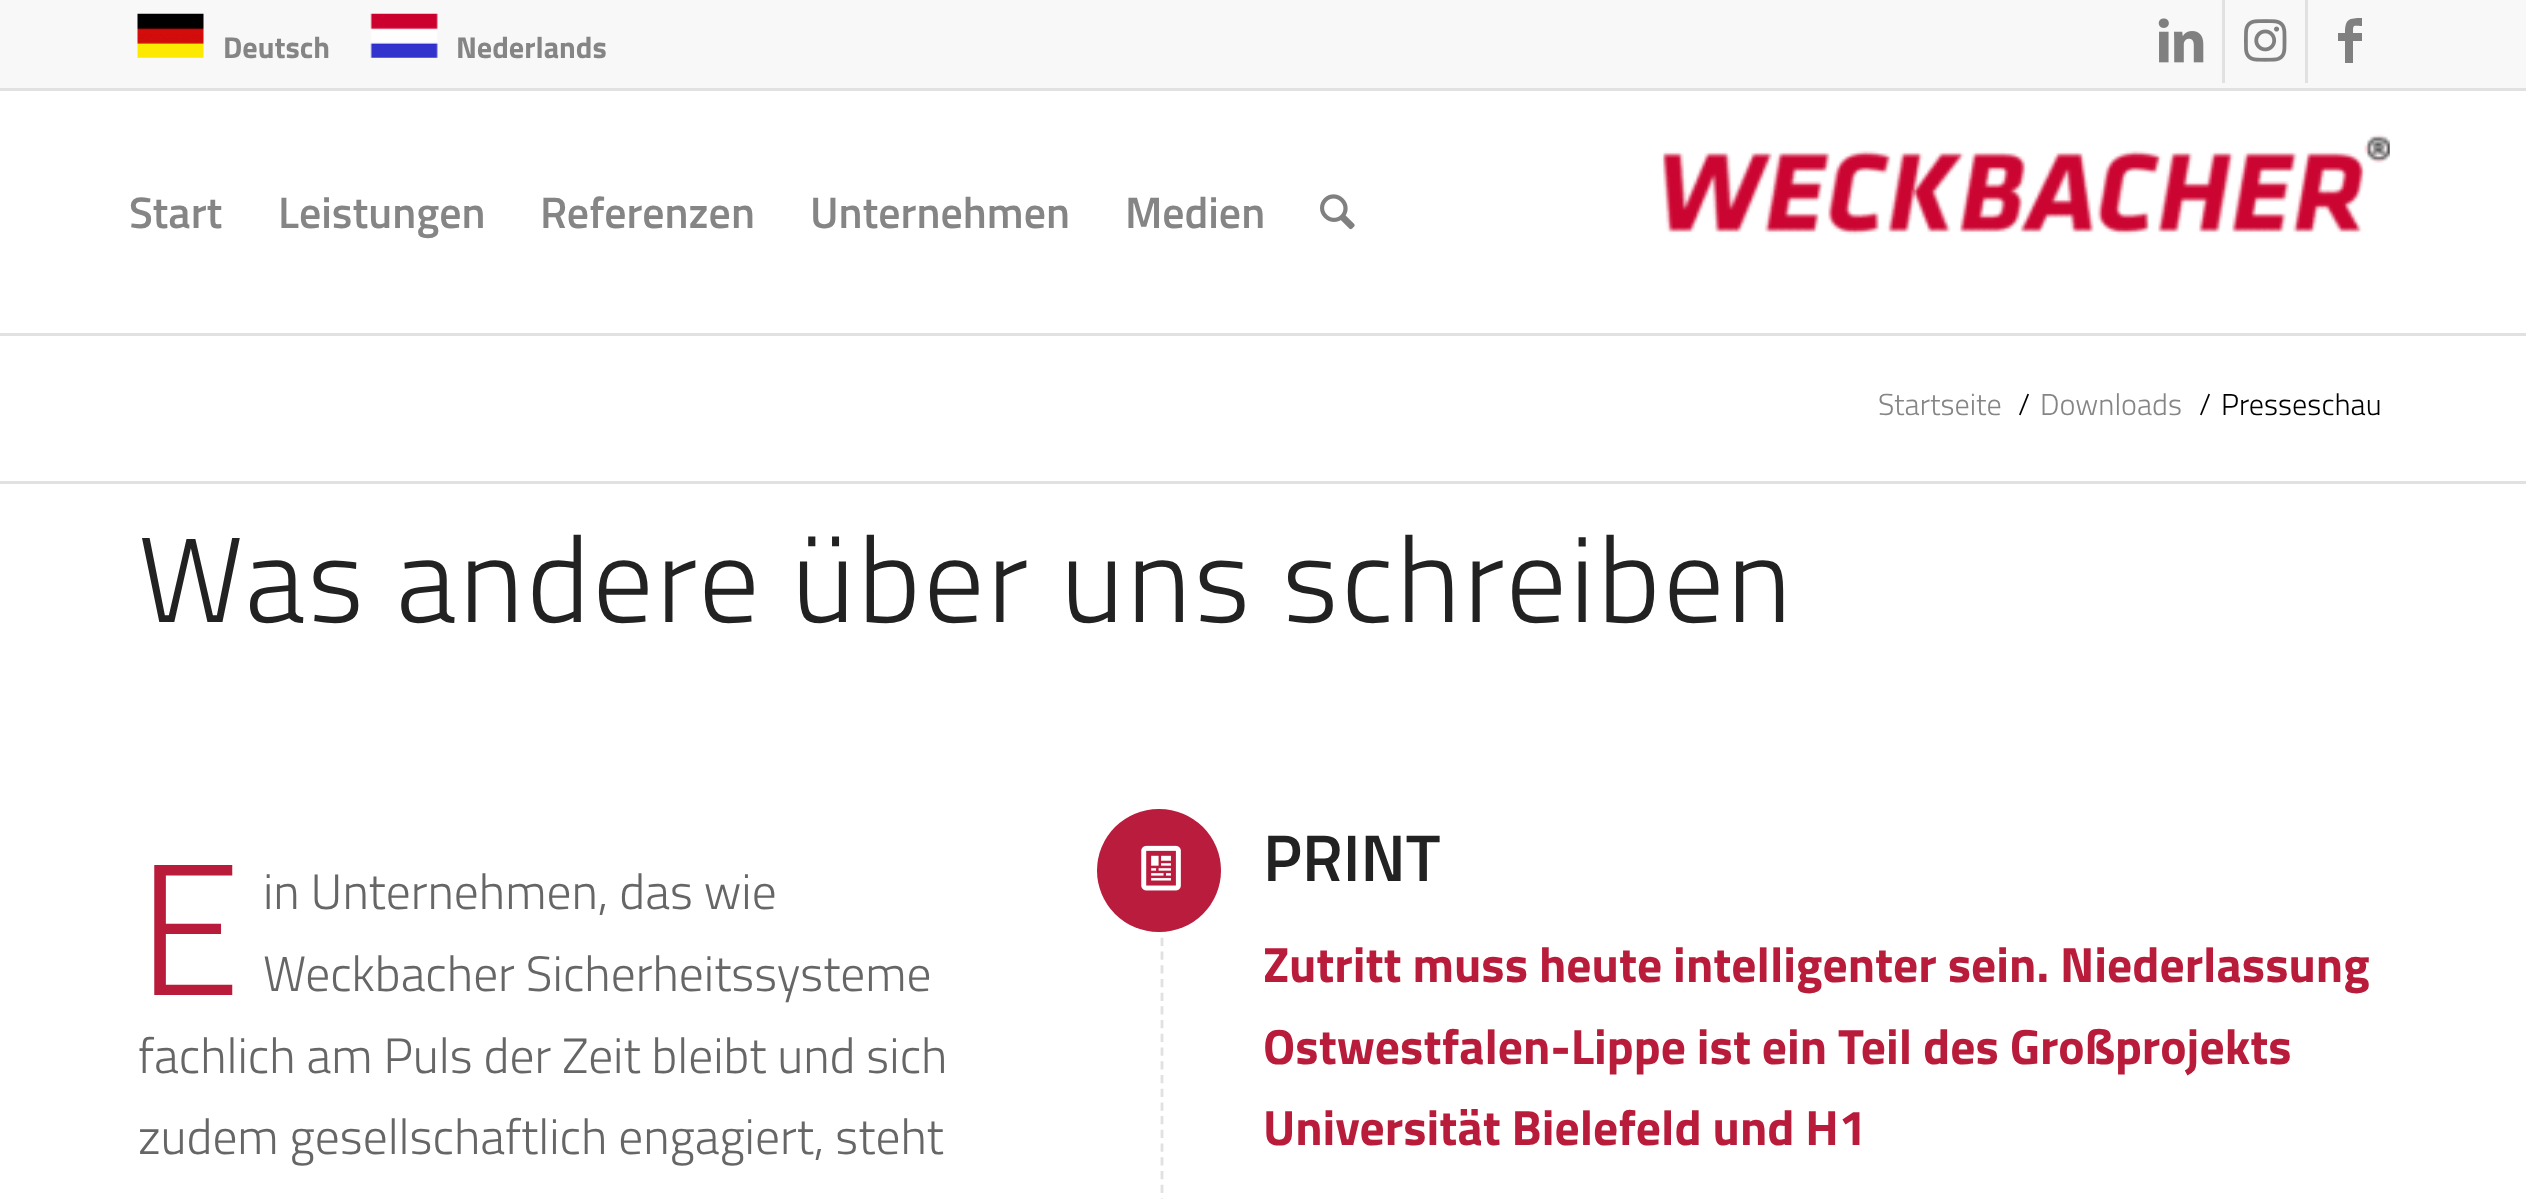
<svg xmlns="http://www.w3.org/2000/svg" width="2526" height="1199" viewBox="0 0 2526 1199">
  <style>
    .t1 { font: bold 30.25px Titillium Web; fill: #858585; }
    .t2 { font: 600 44px Titillium Web; fill: #858585; }
    .t3 { font: 300 30.25px Titillium Web; fill: #858585; }
    .t4 { font: 300 30.25px Titillium Web; fill: #000; }
    .t5 { font: 300 121px Titillium Web; letter-spacing: 2.75px; fill: #222; }
    .t6 { font: 300 187px Titillium Web; fill: #b91c3b; }
    .t7 { font: 300 49.5px Titillium Web; fill: #666; }
    .t8 { font: 600 66px Titillium Web; fill: #222; }
    .t9 { font: bold 49.5px Titillium Web; fill: #b91c3b; }
  </style>
  <rect width="100%" height="100%" fill="#fff"/>
  <rect x="0" y="0" width="2526" height="88" fill="#f8f8f8"/>
  <rect x="0" y="88" width="2526" height="3" fill="#e1e1e1"/>
  <image x="137" y="13" width="67" height="45" href="images/1.png"/>
  <text x="223" y="58" class="t1">Deutsch</text>
  <image x="370" y="13" width="68" height="45" href="images/2.png"/>
  <text x="456" y="58" class="t1">Nederlands</text>
  <rect x="2222" y="0" width="3" height="83" fill="#e1e1e1"/>
  <image x="2158" y="18" width="46" height="45" href="images/3.png"/>
  <rect x="2305" y="0" width="3" height="83" fill="#e1e1e1"/>
  <image x="2244" y="19" width="43" height="43" href="images/4.png"/>
  <path d="M2362 26C2353 26 2353 24 2353 33H2362V41H2353V63H2345V41H2338V33H2345C2345 19 2349 18 2362 18Z" fill="#808080"/>
  <rect x="0" y="333" width="2526" height="3" fill="#e1e1e1"/>
  <text x="129" y="228" class="t2">Start</text>
  <text x="278" y="228" class="t2">Leistungen</text>
  <text x="540" y="228" class="t2">Referenzen</text>
  <text x="810" y="228" class="t2">Unternehmen</text>
  <text x="1125" y="228" class="t2">Medien</text>
  <image x="1320" y="194" width="35" height="36" href="images/5.png"/>
  <image x="1661" y="134" width="729" height="101" href="images/6.png"/>
  <text x="1878" y="415" class="t3">Startseite</text>
  <text x="2018" y="415" class="t4">/</text>
  <text x="2040" y="415" class="t3">Downloads</text>
  <text x="2199" y="415" class="t4">/</text>
  <text x="2221" y="415" class="t4">Presseschau</text>
  <rect x="0" y="481" width="2526" height="3" fill="#e1e1e1"/>
  <text x="138" y="622" class="t5">Was andere über uns schreiben</text>
  <text x="138" y="995" class="t6">E</text>
  <text x="263" y="909" class="t7">in Unternehmen, das wie</text>
  <text x="263" y="991" class="t7">Weckbacher Sicherheitssysteme</text>
  <text x="138" y="1073" class="t7">fachlich am Puls der Zeit bleibt und sich</text>
  <text x="138" y="1154" class="t7">zudem gesellschaftlich engagiert, steht</text>
  <path d="M1162 828V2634.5" fill="none" stroke="#e1e1e1" stroke-width="2.8" stroke-dasharray="8.25 5.47"/>
  <rect x="1097" y="809" width="124" height="123" rx="61.5" fill="#b91c3c"/>
  <image x="1141" y="845" width="40" height="46" href="images/7.png"/>
  <text x="1263" y="881" class="t8">PRINT</text>
  <text x="1263" y="982" class="t9">Zutritt muss heute intelligenter sein. Niederlassung</text>
  <text x="1263" y="1064" class="t9">Ostwestfalen-Lippe ist ein Teil des Großprojekts</text>
  <text x="1263" y="1145" class="t9">Universität Bielefeld und H1</text>
</svg>
